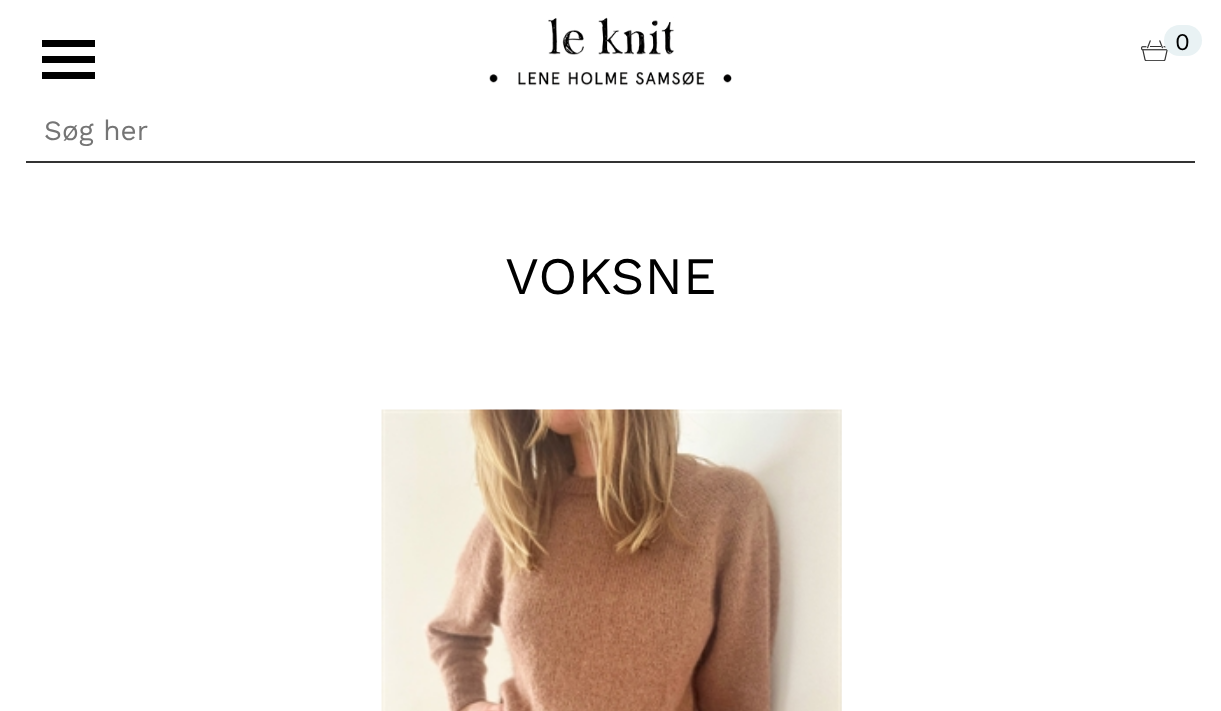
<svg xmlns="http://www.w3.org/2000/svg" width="1221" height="711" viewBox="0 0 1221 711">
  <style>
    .t1 { font: 24px Work Sans; fill: #000; }
    .t2 { font: 28px Work Sans; fill: #757575; }
    .t3 { font: 52.5px Work Sans; fill: #000; }
  </style>
  <rect width="100%" height="100%" fill="#fff"/>
  <image x="489" y="17" width="243" height="69" href="images/1.png"/>
  <image x="1141" y="40" width="27" height="21" href="images/2.png"/>
  <rect x="1164" y="25" width="38" height="31" rx="15.5" fill="#e9f2f4"/>
  <text x="1175" y="50" class="t1">0</text>
  <rect x="26" y="161" width="1169" height="2" fill="#333"/>
  <text x="44" y="140" class="t2">Søg her</text>
  <rect x="42" y="40" width="53" height="7" fill="#000"/>
  <rect x="42" y="56" width="53" height="7" fill="#000"/>
  <rect x="42" y="72" width="53" height="7" fill="#000"/>
  <text x="505" y="294" class="t3">VOKSNE</text>
  <image x="381" y="409" width="461" height="302" href="images/3.png"/>
</svg>
